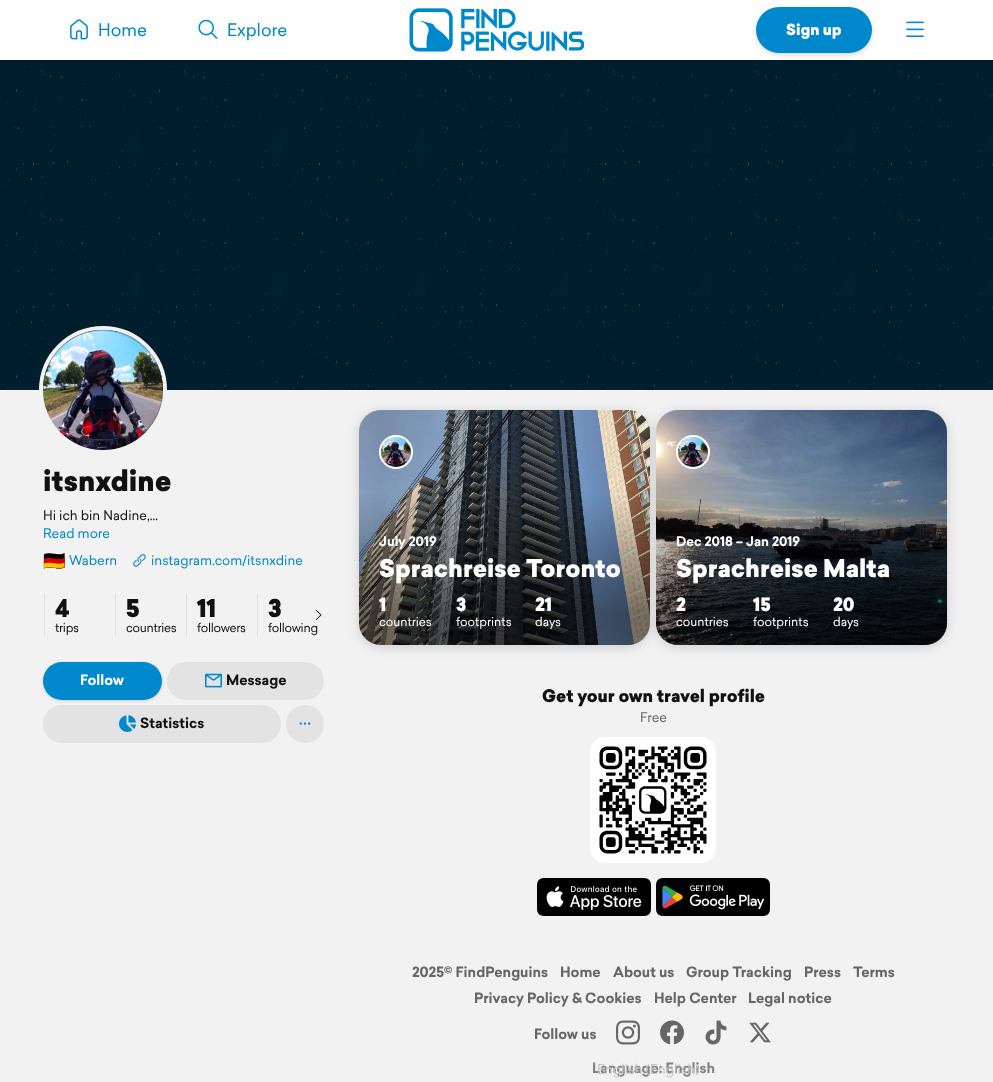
<svg xmlns="http://www.w3.org/2000/svg" width="993" height="1082" viewBox="0 0 993 1082">
  <style>
    .t1 { font: 17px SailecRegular; fill: #08c; }
    .t2 { font: 900 15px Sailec; fill: #fff; }
    .t3 { font: 900 28px Sailec; fill: #111; }
    .t4 { font: 13px SailecRegular; fill: #111; }
    .t5 { font: 13px SailecRegular; fill: #08c; }
    .t6 { font: 18px Noto Color Emoji; fill: #08c; }
    .t7 { font: 900 24px Sailec; fill: #111; }
    .t8 { font: 12px SailecRegular; letter-spacing: -0.25px; fill: #111; }
    .t9 { font: bold 14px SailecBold; fill: #fff; }
    .t10 { font: bold 14px SailecBold; fill: #111; }
    .t11 { font: bold 13px SailecBold; fill: #fff; }
    .t12 { font: 900 24px Sailec; fill: #fff; }
    .t13 { font: 900 18px Sailec; fill: #fff; }
    .t14 { font: 12px SailecRegular; fill: #fff; }
    .t15 { font: 900 17px Sailec; fill: #111; }
    .t16 { font: 13px SailecRegular; fill: #666; }
    .t17 { font: bold 14px SailecBold; fill: #666; }
    .t18 { font: bold 14px SailecBold; fill: #828282; }
    .t19 { font: 13.25px SailecRegular; fill: #c5c5c5; }
  </style>
  <defs>
    <clipPath id="clip1"><rect x="43" y="552" width="74" height="17"/></clipPath>
    <linearGradient id="g1" gradientUnits="userSpaceOnUse" x1="505" y1="645" x2="505" y2="493"><stop offset="0.2" stop-color="#000" stop-opacity="0.5"/><stop offset="1" stop-color="#000" stop-opacity="0"/></linearGradient>
    <linearGradient id="g2" gradientUnits="userSpaceOnUse" x1="802" y1="645" x2="802" y2="493"><stop offset="0.2" stop-color="#000" stop-opacity="0.5"/><stop offset="1" stop-color="#000" stop-opacity="0"/></linearGradient>
  </defs>
  <rect width="100%" height="100%" fill="#f2f2f2"/>
  <rect x="0" y="60" width="993" height="330" fill="#001f2e"/>
  <image x="2" y="61" width="991" height="328" href="images/5.png"/>
  <rect x="0" y="1" width="993" height="60" fill="#0000001a" filter="blur(1.5px)"/>
  <rect x="0" y="0" width="993" height="60" fill="#fff"/>
  <image x="409" y="8" width="175" height="44" href="images/1.png"/>
  <image x="70" y="19" width="18" height="21" href="images/2.png"/>
  <text x="98" y="36" class="t1">Home</text>
  <image x="198" y="19" width="20" height="20" href="images/3.png"/>
  <text x="227" y="36" class="t1">Explore</text>
  <rect x="756" y="9" width="116" height="46" rx="23" fill="#00000026" filter="blur(2.5px)"/>
  <rect x="756" y="7" width="116" height="46" rx="23" fill="#08c"/>
  <text x="786" y="35" class="t2">Sign up</text>
  <image x="906" y="21" width="18" height="17" href="images/4.png"/>
  <circle cx="103" cy="390" r="62" fill="none" stroke="#f2f2f2" stroke-width="4"/>
  <image x="43" y="330" width="120" height="120" href="images/6.png"/>
  <path d="M102 331C70 331 43 358 43 390C43 370 53 351 69 340C114 310 172 350 162 402C159 414 154 424 145 433C134 444 119 450 103 450C135 450 162 423 162 390C162 358 135 331 102 331Z" fill="#00000033"/>
  <text x="43" y="491" class="t3">itsnxdine</text>
  <text x="43" y="520" class="t4">Hi ich bin Nadine,…</text>
  <text x="43" y="538" class="t5">Read more</text>
  <g clip-path="url(#clip1)">
    <text x="43" y="567" class="t6">🇩🇪</text>
  </g>
  <text x="69" y="565" class="t5">Wabern</text>
  <image x="133" y="554" width="13" height="13" href="images/7.png"/>
  <text x="151" y="565" class="t5">instagram.com/itsnxdine</text>
  <rect x="44" y="594" width="1" height="42" fill="#e0e0e0"/>
  <text x="55" y="617" class="t7">4</text>
  <text x="55" y="632" class="t8">trips</text>
  <rect x="115" y="594" width="1" height="42" fill="#e0e0e0"/>
  <text x="126" y="617" class="t7">5</text>
  <text x="126" y="632" class="t8">countries</text>
  <rect x="186" y="594" width="1" height="42" fill="#e0e0e0"/>
  <text x="197" y="617" class="t7">11</text>
  <text x="197" y="632" class="t8">followers</text>
  <rect x="257" y="594" width="1" height="42" fill="#e0e0e0"/>
  <text x="268" y="617" class="t7">3</text>
  <text x="268" y="632" class="t8">following</text>
  <image x="315" y="609" width="7" height="11" href="images/8.png"/>
  <rect x="43" y="663" width="119" height="38" rx="19" fill="#00000026" filter="blur(1.5px)"/>
  <rect x="43" y="662" width="119" height="38" rx="19" fill="#08c"/>
  <text x="80" y="685" class="t9">Follow</text>
  <rect x="167" y="662" width="157" height="38" rx="19" fill="#e3e3e3"/>
  <image x="205" y="673" width="17" height="15" href="images/9.png"/>
  <text x="226" y="685" class="t10">Message</text>
  <rect x="43" y="705" width="238" height="38" rx="19" fill="#e3e3e3"/>
  <image x="119" y="715" width="17" height="17" href="images/10.png"/>
  <text x="140" y="728" class="t10">Statistics</text>
  <circle cx="305" cy="724" r="19" fill="#e3e3e3"/>
  <image x="299" y="722" width="12" height="3" href="images/11.png"/>
  <rect x="359" y="412" width="291" height="235" rx="22" fill="#00000026" filter="blur(6px)"/>
  <rect x="359" y="410" width="291" height="235" rx="22" fill="#c1cfdb"/>
  <image x="359" y="410" width="291" height="235" href="images/12.png"/>
  <circle cx="396" cy="452" r="16" fill="#ffffff80" stroke="#fff" stroke-width="2"/>
  <image x="381" y="437" width="30" height="30" href="images/13.png"/>
  <path d="M396 437C404.5 437 411 443.5 411 452C411 460.5 404.5 467 396 467C387.5 467 381 460.5 381 452C381 443.5 387.5 437 396 437Z" fill="#0000000d"/>
  <rect x="656" y="412" width="291" height="235" rx="22" fill="#00000026" filter="blur(6px)"/>
  <path d="M359 493H650V623C650 635 640 645 628 645H381C369 645 359 635 359 623Z" fill="url(#g1)"/>
  <text x="379" y="546" class="t11">July 2019</text>
  <text x="379" y="577" class="t12">Sprachreise Toronto</text>
  <text x="379" y="611" class="t13">1</text>
  <text x="379" y="626" class="t14">countries</text>
  <text x="456" y="611" class="t13">3</text>
  <text x="456" y="626" class="t14">footprints</text>
  <text x="535" y="611" class="t13">21</text>
  <text x="535" y="626" class="t14">days</text>
  <rect x="656" y="410" width="291" height="235" rx="22" fill="#c1cfdb"/>
  <image x="656" y="410" width="291" height="235" href="images/14.png"/>
  <circle cx="693" cy="452" r="16" fill="#ffffff80" stroke="#fff" stroke-width="2"/>
  <image x="678" y="437" width="30" height="30" href="images/15.png"/>
  <path d="M693 437C701.5 437 708 443.5 708 452C708 460.5 701.5 467 693 467C684.5 467 678 460.5 678 452C678 443.5 684.5 437 693 437Z" fill="#0000000d"/>
  <path d="M656 493H947V623C947 635 937 645 925 645H678C666 645 656 635 656 623Z" fill="url(#g2)"/>
  <text x="676" y="546" class="t11">Dec 2018 – Jan 2019</text>
  <text x="676" y="577" class="t12">Sprachreise Malta</text>
  <text x="676" y="611" class="t13">2</text>
  <text x="676" y="626" class="t14">countries</text>
  <text x="753" y="611" class="t13">15</text>
  <text x="753" y="626" class="t14">footprints</text>
  <text x="833" y="611" class="t13">20</text>
  <text x="833" y="626" class="t14">days</text>
  <text x="542" y="702" class="t15">Get your own travel profile</text>
  <text x="640" y="722" class="t16">Free</text>
  <rect x="590" y="737" width="126" height="126" rx="15" fill="#fff"/>
  <image x="599" y="746" width="108" height="108" href="images/16.png"/>
  <image x="537" y="878" width="114" height="38" href="images/17.png"/>
  <image x="656" y="878" width="114" height="38" href="images/18.png"/>
  <text x="412" y="977" class="t17">2025© FindPenguins</text>
  <text x="560" y="977" class="t17">Home</text>
  <text x="613" y="977" class="t17">About us</text>
  <text x="686" y="977" class="t17">Group Tracking</text>
  <text x="804" y="977" class="t17">Press</text>
  <text x="853" y="977" class="t17">Terms</text>
  <text x="474" y="1003" class="t17">Privacy Policy &amp; Cookies</text>
  <text x="654" y="1003" class="t17">Help Center</text>
  <text x="748" y="1003" class="t17">Legal notice</text>
  <text x="534" y="1039" class="t17">Follow us</text>
  <image x="616" y="1020" width="24" height="25" href="images/19.png"/>
  <image x="660" y="1020" width="24" height="25" href="images/20.png"/>
  <image x="705" y="1020" width="22" height="25" href="images/21.png"/>
  <image x="749" y="1022" width="22" height="21" href="images/22.png"/>
  <text x="592" y="1073" class="t18">Language: English</text>
  <text x="597" y="1074" class="t19">English (English)</text>
</svg>
